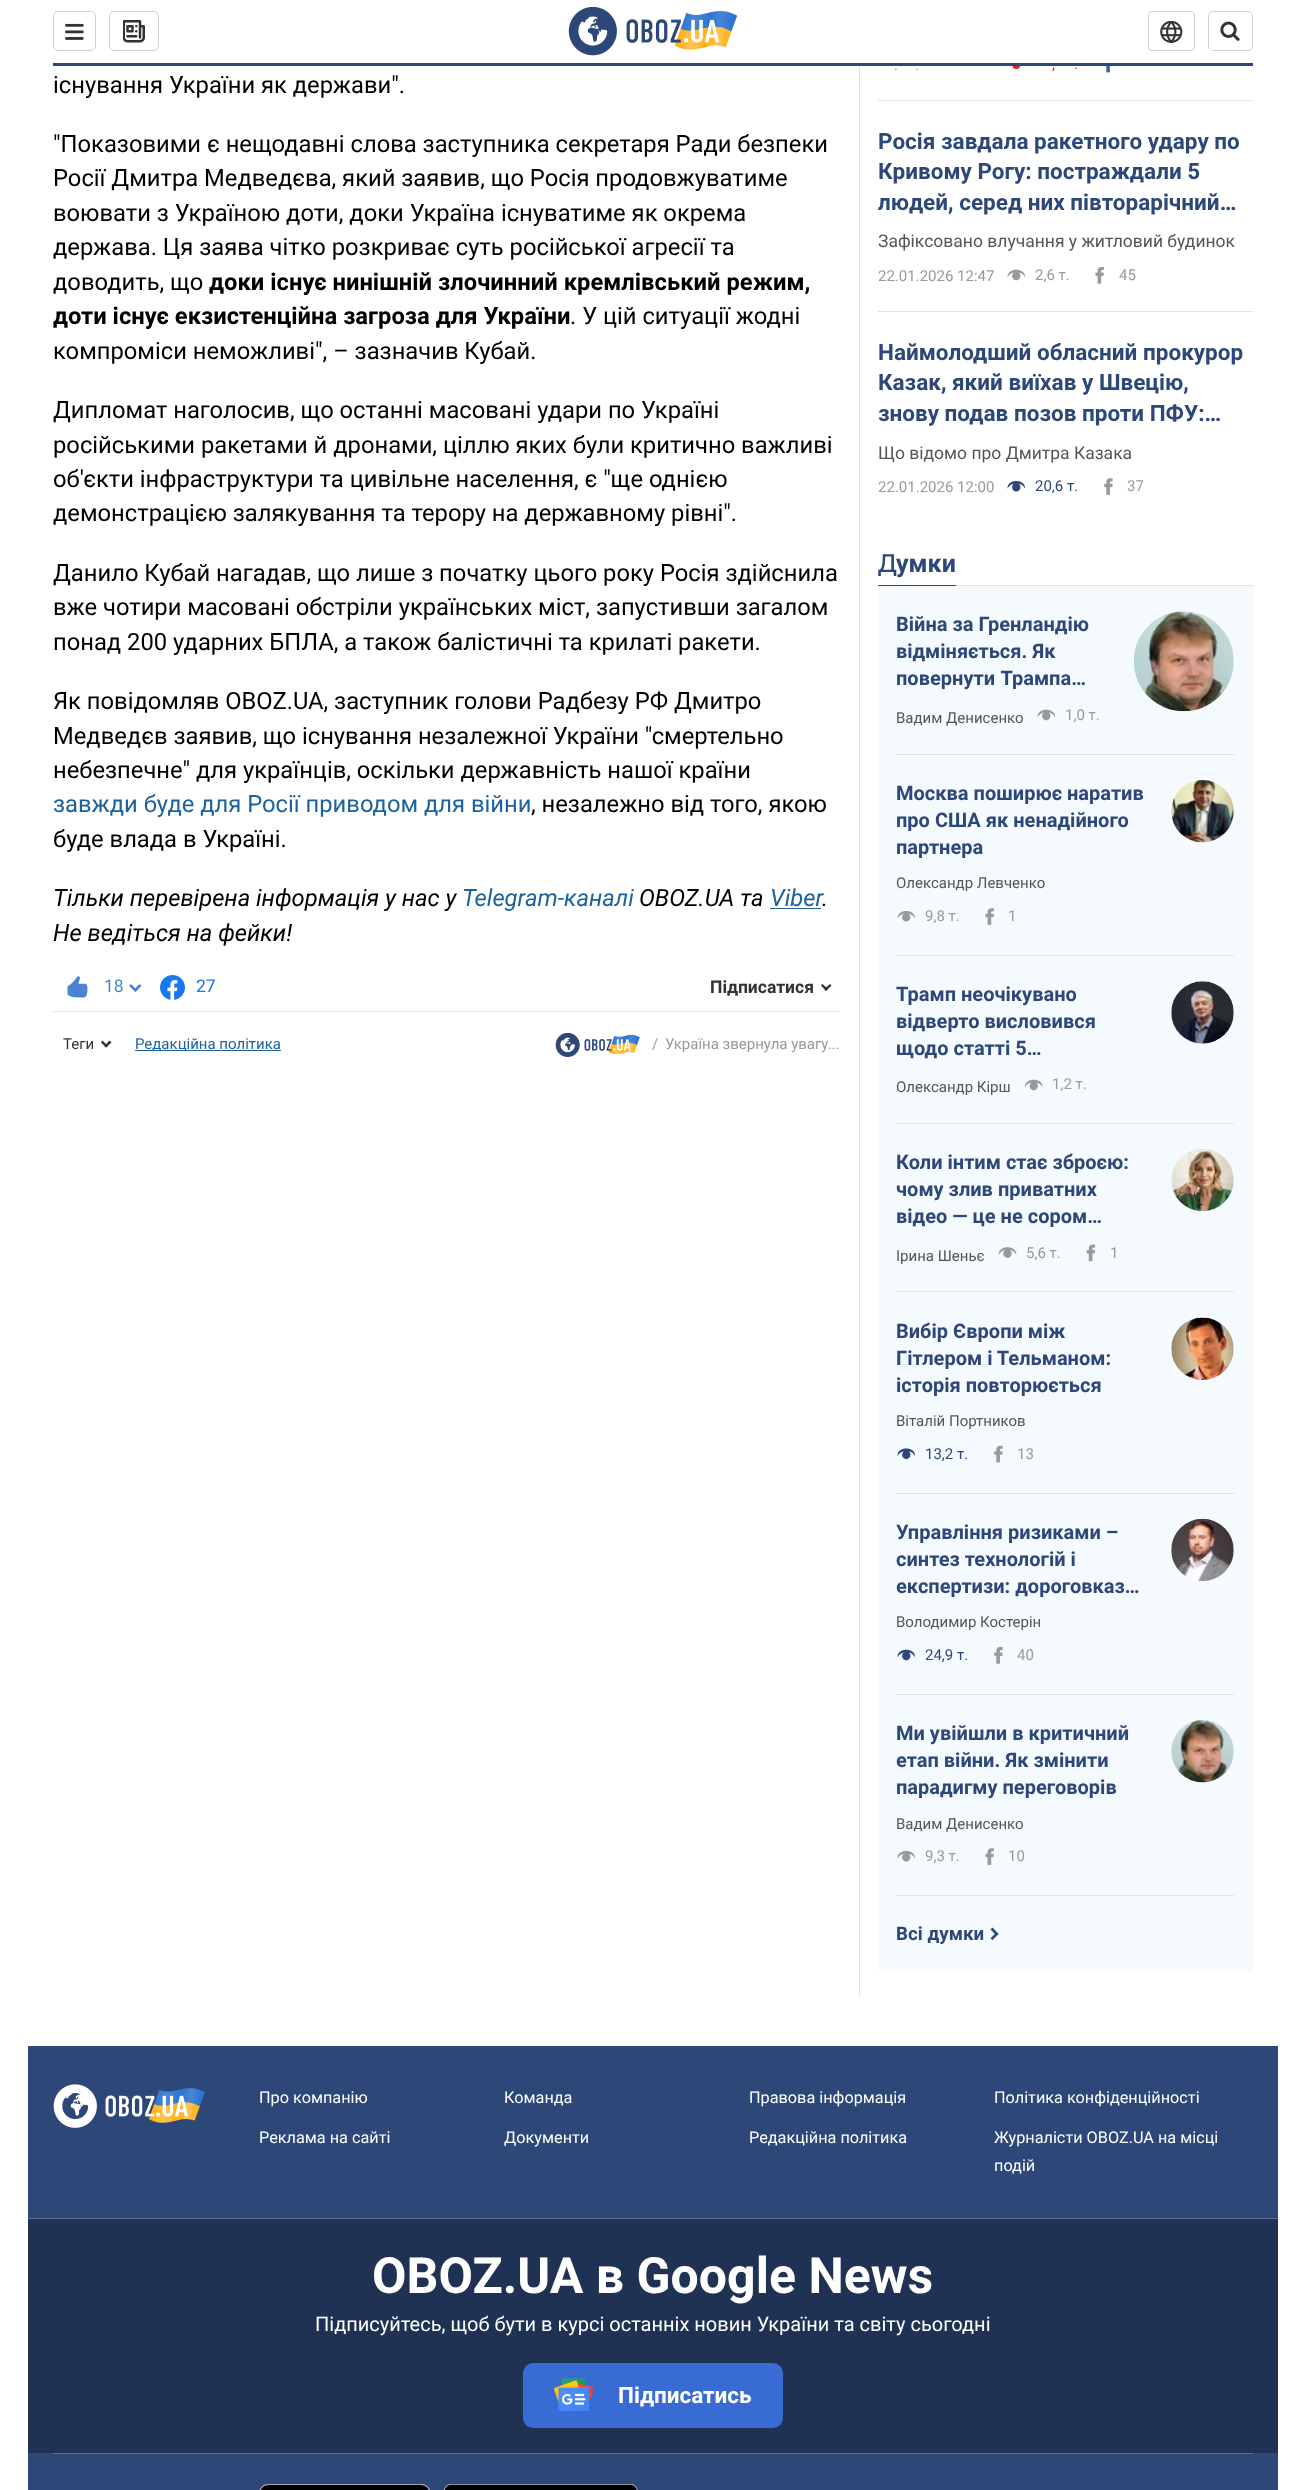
<svg xmlns="http://www.w3.org/2000/svg" width="1304" height="2490" viewBox="0 0 1304 2490">
  <style>
    .t1 { font: 23.75px Roboto; fill: #000; }
    .t2 { font: bold 23.75px Roboto; fill: #000; }
    .t3 { font: 23.75px Roboto; fill: #1c629c; }
    .t4 { font: italic 23.75px Roboto; fill: #000; }
    .t5 { font: italic 23.75px Roboto; fill: #1c629c; }
    .t6 { font: 17.5px Roboto; fill: #4a85d3; }
    .t7 { font: 17.5px Roboto; fill: #1778f2; }
    .t8 { font: bold 17.5px Roboto; fill: #333; }
    .t9 { font: 15px Roboto; fill: #333; }
    .t10 { font: 15px Roboto; fill: #1c629c; }
    .t11 { font: 15px Roboto; fill: #999; }
    .t12 { font: 15px Roboto; fill: #ea1d1d; }
    .t13 { font: bold 22.5px Roboto; fill: #2d4878; }
    .t14 { font: 17.5px Roboto; fill: #555; }
    .t15 { font: 15px Roboto; fill: #2d4878; }
    .t16 { font: 500 25px Noto Sans; fill: #2d4878; }
    .t17 { font: bold 25px Roboto; fill: #2d4878; }
    .t18 { font: bold 20px Roboto; fill: #2d4878; }
    .t19 { font: 15px Roboto; fill: #555; }
    .t20 { font: bold 18.75px Roboto; fill: #2d4878; }
    .t21 { font: 16.25px Roboto; fill: #fff; }
    .t22 { font: bold 50px Roboto; fill: #fff; }
    .t23 { font: 20px Roboto; fill: #fff; }
    .t24 { font: bold 22.5px Roboto; fill: #fff; }
  </style>
  <defs>
    <clipPath id="clip1"><rect x="878" y="126" width="375" height="92"/></clipPath>
  </defs>
  <rect width="100%" height="100%" fill="#fff"/>
  <rect x="53" y="63" width="1200" height="3" fill="#2d4878"/>
  <rect x="53.5" y="11.5" width="42" height="39" rx="4.5" fill="none" stroke="#d0d0d0"/>
  <image x="65" y="23" width="19" height="17" href="images/1.png"/>
  <rect x="109.5" y="11.5" width="49" height="39" rx="4.5" fill="none" stroke="#d0d0d0"/>
  <image x="123" y="20" width="22" height="23" href="images/2.png"/>
  <image x="568" y="6" width="169" height="50" href="images/3.png"/>
  <rect x="1148.5" y="11.5" width="46" height="39" rx="3.5" fill="none" stroke="#d0d0d0"/>
  <image x="1160" y="21" width="23" height="22" href="images/4.png"/>
  <rect x="1208.5" y="11.5" width="44" height="39" rx="4.5" fill="none" stroke="#d0d0d0"/>
  <rect x="1209" y="13" width="42" height="37" rx="4" fill="#fff"/>
  <image x="1220" y="21" width="20" height="20" href="images/5.png"/>
  <text x="53" y="93" class="t1">існування України як держави".</text>
  <text x="53" y="152" class="t1">"Показовими є нещодавні слова заступника секретаря Ради безпеки</text>
  <text x="53" y="186" class="t1">Росії Дмитра Медведєва, який заявив, що Росія продовжуватиме</text>
  <text x="53" y="221" class="t1">воювати з Україною доти, доки Україна існуватиме як окрема</text>
  <text x="53" y="255" class="t1">держава. Ця заява чітко розкриває суть російської агресії та</text>
  <text x="53" y="290" class="t1">доводить, що</text>
  <text x="209" y="290" class="t2">доки існує нинішній злочинний кремлівський режим,</text>
  <text x="53" y="324" class="t2">доти існує екзистенційна загроза для України</text>
  <text x="570" y="324" class="t1">. У цій ситуації жодні</text>
  <text x="53" y="359" class="t1">компроміси неможливі", – зазначив Кубай.</text>
  <text x="53" y="418" class="t1">Дипломат наголосив, що останні масовані удари по Україні</text>
  <text x="53" y="453" class="t1">російськими ракетами й дронами, ціллю яких були критично важливі</text>
  <text x="53" y="487" class="t1">об'єкти інфраструктури та цивільне населення, є "ще однією</text>
  <text x="53" y="521" class="t1">демонстрацією залякування та терору на державному рівні".</text>
  <text x="53" y="581" class="t1">Данило Кубай нагадав, що лише з початку цього року Росія здійснила</text>
  <text x="53" y="615" class="t1">вже чотири масовані обстріли українських міст, запустивши загалом</text>
  <text x="53" y="650" class="t1">понад 200 ударних БПЛА, а також балістичні та крилаті ракети.</text>
  <text x="53" y="709" class="t1">Як повідомляв OBOZ.UA, заступник голови Радбезу РФ Дмитро</text>
  <text x="53" y="744" class="t1">Медведєв заявив, що існування незалежної України "смертельно</text>
  <text x="53" y="778" class="t1">небезпечне" для українців, оскільки державність нашої країни</text>
  <text x="53" y="812" class="t3">завжди буде для Росії приводом для війни</text>
  <text x="531" y="812" class="t1">, незалежно від того, якою</text>
  <text x="53" y="847" class="t1">буде влада в Україні.</text>
  <text x="53" y="906" class="t4">Тільки перевірена інформація у нас у</text>
  <text x="462" y="906" class="t5">Telegram-каналі</text>
  <text x="639" y="906" class="t4">OBOZ.UA та</text>
  <text x="770" y="906" class="t5">Viber</text>
  <rect x="770" y="908" width="51" height="1" fill="#1c629c"/>
  <text x="822" y="906" class="t4">.</text>
  <text x="53" y="941" class="t4">Не ведіться на фейки!</text>
  <rect x="53" y="1011" width="787" height="1" fill="#e2e2e2"/>
  <image x="67" y="976" width="21" height="22" href="images/6.png"/>
  <text x="104" y="992" class="t6">18</text>
  <path d="M139.5 984L141.5 986L135.5 992L133.5 990Z" fill="#4a85d3"/>
  <path d="M131 984L137 990L135.5 992L129 986Z" fill="#4a85d3"/>
  <image x="160" y="975" width="25" height="25" href="images/7.png"/>
  <text x="196" y="992" class="t7">27</text>
  <text x="710" y="993" class="t8">Підписатися</text>
  <path d="M830 984L831.5 985.5L826 991L824.5 989Z" fill="#333"/>
  <path d="M822.5 984L828 989L826 991L821 985.5Z" fill="#333"/>
  <text x="63" y="1049" class="t9">Теги</text>
  <path d="M109.5 1040.5L111.5 1042.5L106 1047.5L104.5 1046Z" fill="#333"/>
  <path d="M102.5 1040.5L108 1046L106 1047.5L101 1042.5Z" fill="#333"/>
  <rect x="135" y="1050" width="146" height="1" fill="#1c629c"/>
  <text x="135" y="1049" class="t10">Редакційна політика</text>
  <image x="555" y="1033" width="85" height="24" href="images/8.png"/>
  <text x="652" y="1049" class="t11">/</text>
  <text x="665" y="1049" class="t11">Україна звернула увагу...</text>
  <rect x="859" y="66" width="1" height="1930" fill="#e2e2e2"/>
  <rect x="878" y="100" width="375" height="1" fill="#e2e2e2"/>
  <text x="894" y="70" class="t11">.</text>
  <text x="915" y="70" class="t11">.</text>
  <image x="1007" y="66" width="14" height="4" href="images/9.png"/>
  <text x="1052" y="69" class="t12">,</text>
  <text x="1074" y="69" class="t12">.</text>
  <image x="1106" y="66" width="4" height="7" href="images/10.png"/>
  <rect x="878" y="311" width="375" height="1" fill="#e2e2e2"/>
  <text x="878" y="149" class="t13">Росія завдала ракетного удару по</text>
  <text x="878" y="179" class="t13">Кривому Рогу: постраждали 5</text>
  <g clip-path="url(#clip1)">
    <text x="878" y="210" class="t13">людей, серед них півторарічний…</text>
  </g>
  <text x="878" y="247" class="t14">Зафіксовано влучання у житловий будинок</text>
  <text x="878" y="281" class="t11">22.01.2026 12:47</text>
  <image x="1007" y="269" width="18" height="12" href="images/11.png"/>
  <text x="1035" y="280" class="t11">2,6 т.</text>
  <image x="1095" y="267" width="9" height="17" href="images/12.png"/>
  <text x="1119" y="280" class="t11">45</text>
  <text x="878" y="360" class="t13">Наймолодший обласний прокурор</text>
  <text x="878" y="390" class="t13">Казак, який виїхав у Швецію,</text>
  <text x="878" y="421" class="t13">знову подав позов проти ПФУ:…</text>
  <text x="878" y="459" class="t14">Що відомо про Дмитра Казака</text>
  <text x="878" y="492" class="t11">22.01.2026 12:00</text>
  <image x="1007" y="480" width="18" height="12" href="images/13.png"/>
  <text x="1035" y="491" class="t15">20,6 т.</text>
  <image x="1104" y="478" width="9" height="17" href="images/14.png"/>
  <text x="1127" y="491" class="t11">37</text>
  <rect x="956" y="585" width="297" height="1" fill="#e2e2e2"/>
  <text x="878" y="572" class="t16">Д</text>
  <text x="896" y="572" class="t17">умки</text>
  <rect x="878" y="585" width="78" height="1" fill="#2d4878"/>
  <rect x="878" y="586" width="375" height="1385" fill="#f4fafe"/>
  <rect x="896" y="754" width="338" height="1" fill="#e2e2e2"/>
  <text x="896" y="631" class="t18">Війна за Гренландію</text>
  <text x="896" y="658" class="t18">відміняється. Як</text>
  <text x="896" y="685" word-spacing="1" class="t18">повернути Трампа…</text>
  <text x="896" y="723" class="t19">Вадим Денисенко</text>
  <image x="1037" y="709" width="18" height="12" href="images/15.png"/>
  <text x="1065" y="720" class="t11">1,0 т.</text>
  <image x="1133" y="611" width="101" height="101" href="images/16.png"/>
  <rect x="896" y="955" width="338" height="1" fill="#e2e2e2"/>
  <text x="896" y="800" class="t18">Москва поширює наратив</text>
  <text x="896" y="827" class="t18">про США як ненадійного</text>
  <text x="896" y="854" class="t18">партнера</text>
  <text x="896" y="888" class="t19">Олександр Левченко</text>
  <image x="897" y="910" width="18" height="12" href="images/17.png"/>
  <text x="925" y="921" class="t11">9,8 т.</text>
  <image x="985" y="908" width="9" height="17" href="images/18.png"/>
  <text x="1008" y="921" class="t11">1</text>
  <image x="1171" y="780" width="63" height="63" href="images/19.png"/>
  <rect x="896" y="1123" width="338" height="1" fill="#e2e2e2"/>
  <text x="896" y="1001" class="t18">Трамп неочікувано</text>
  <text x="896" y="1028" class="t18">відверто висловився</text>
  <text x="896" y="1055" class="t18">щодо статті 5…</text>
  <text x="896" y="1092" class="t19">Олександр Кірш</text>
  <image x="1025" y="1079" width="18" height="12" href="images/20.png"/>
  <text x="1052" y="1089" class="t11">1,2 т.</text>
  <image x="1171" y="981" width="63" height="63" href="images/21.png"/>
  <rect x="896" y="1291" width="338" height="1" fill="#e2e2e2"/>
  <text x="896" y="1169" class="t18">Коли інтим стає зброєю:</text>
  <text x="896" y="1196" class="t18">чому злив приватних</text>
  <text x="896" y="1223" class="t18">відео — це не сором…</text>
  <text x="896" y="1261" class="t19">Ірина Шеньє</text>
  <image x="998" y="1247" width="19" height="11" href="images/22.png"/>
  <text x="1026" y="1258" class="t11">5,6 т.</text>
  <image x="1086" y="1244" width="10" height="18" href="images/23.png"/>
  <text x="1110" y="1258" class="t11">1</text>
  <image x="1171" y="1149" width="63" height="63" href="images/24.png"/>
  <rect x="896" y="1493" width="338" height="1" fill="#e2e2e2"/>
  <text x="896" y="1338" class="t18">Вибір Європи між</text>
  <text x="896" y="1365" class="t18">Гітлером і Тельманом:</text>
  <text x="896" y="1392" class="t18">історія повторюється</text>
  <text x="896" y="1426" class="t19">Віталій Портников</text>
  <image x="897" y="1448" width="18" height="12" href="images/25.png"/>
  <text x="925" y="1459" class="t15">13,2 т.</text>
  <image x="994" y="1445" width="9" height="18" href="images/26.png"/>
  <text x="1017" y="1459" class="t11">13</text>
  <image x="1171" y="1317" width="63" height="63" href="images/27.png"/>
  <rect x="896" y="1694" width="338" height="1" fill="#e2e2e2"/>
  <text x="896" y="1539" class="t18">Управління ризиками –</text>
  <text x="896" y="1566" class="t18">синтез технологій і</text>
  <text x="896" y="1593" class="t18">експертизи: дороговказ…</text>
  <text x="896" y="1627" class="t19">Володимир Костерін</text>
  <image x="897" y="1649" width="18" height="12" href="images/28.png"/>
  <text x="925" y="1660" class="t15">24,9 т.</text>
  <image x="994" y="1647" width="9" height="17" href="images/29.png"/>
  <text x="1017" y="1660" class="t11">40</text>
  <image x="1171" y="1518" width="63" height="64" href="images/30.png"/>
  <rect x="896" y="1895" width="338" height="1" fill="#e2e2e2"/>
  <text x="896" y="1740" class="t18">Ми увійшли в критичний</text>
  <text x="896" y="1767" class="t18">етап війни. Як змінити</text>
  <text x="896" y="1794" class="t18">парадигму переговорів</text>
  <text x="896" y="1829" class="t19">Вадим Денисенко</text>
  <image x="897" y="1850" width="18" height="12" href="images/17.png"/>
  <text x="925" y="1861" class="t11">9,3 т.</text>
  <image x="985" y="1848" width="9" height="17" href="images/18.png"/>
  <text x="1008" y="1861" class="t11">10</text>
  <image x="1171" y="1720" width="63" height="63" href="images/31.png"/>
  <text x="896" y="1940" class="t20">Всі думки</text>
  <path d="M990.5 1929.5L992.5 1927.5L998.5 1934L996.5 1935.5Z" fill="#2d4878"/>
  <path d="M990.5 1938.5L996.5 1932L998.5 1934L992.5 1940Z" fill="#2d4878"/>
  <rect x="28" y="2046" width="1250" height="444" fill="#2d4878"/>
  <rect x="28" y="2218" width="1250" height="1" fill="#576d93"/>
  <image x="53" y="2084" width="152" height="44" href="images/32.png"/>
  <text x="259" y="2103" class="t21">Про компанію</text>
  <text x="504" y="2103" class="t21">Команда</text>
  <text x="749" y="2103" class="t21">Правова інформація</text>
  <text x="994" y="2103" class="t21">Політика конфіденційності</text>
  <text x="259" y="2143" class="t21">Реклама на сайті</text>
  <text x="504" y="2143" class="t21">Документи</text>
  <text x="749" y="2143" class="t21">Редакційна політика</text>
  <text x="994" y="2143" class="t21">Журналісти OBOZ.UA на місці</text>
  <text x="994" y="2171" class="t21">подій</text>
  <rect x="53" y="2453" width="1200" height="1" fill="#576d93"/>
  <rect x="28" y="2219" width="1250" height="234" fill="#203254"/>
  <text x="372" y="2293" class="t22">OBOZ.UA в Google News</text>
  <text x="315" y="2331" class="t23">Підписуйтесь, щоб бути в курсі останніх новин України та світу сьогодні</text>
  <rect x="523" y="2363" width="260" height="65" rx="10" fill="#386cd2"/>
  <image x="554" y="2378" width="40" height="34" href="images/33.png"/>
  <text x="618" y="2403" class="t24">Підписатись</text>
  <image x="259" y="2484" width="171" height="6" href="images/34.png"/>
  <image x="444" y="2484" width="194" height="6" href="images/35.png"/>
</svg>
